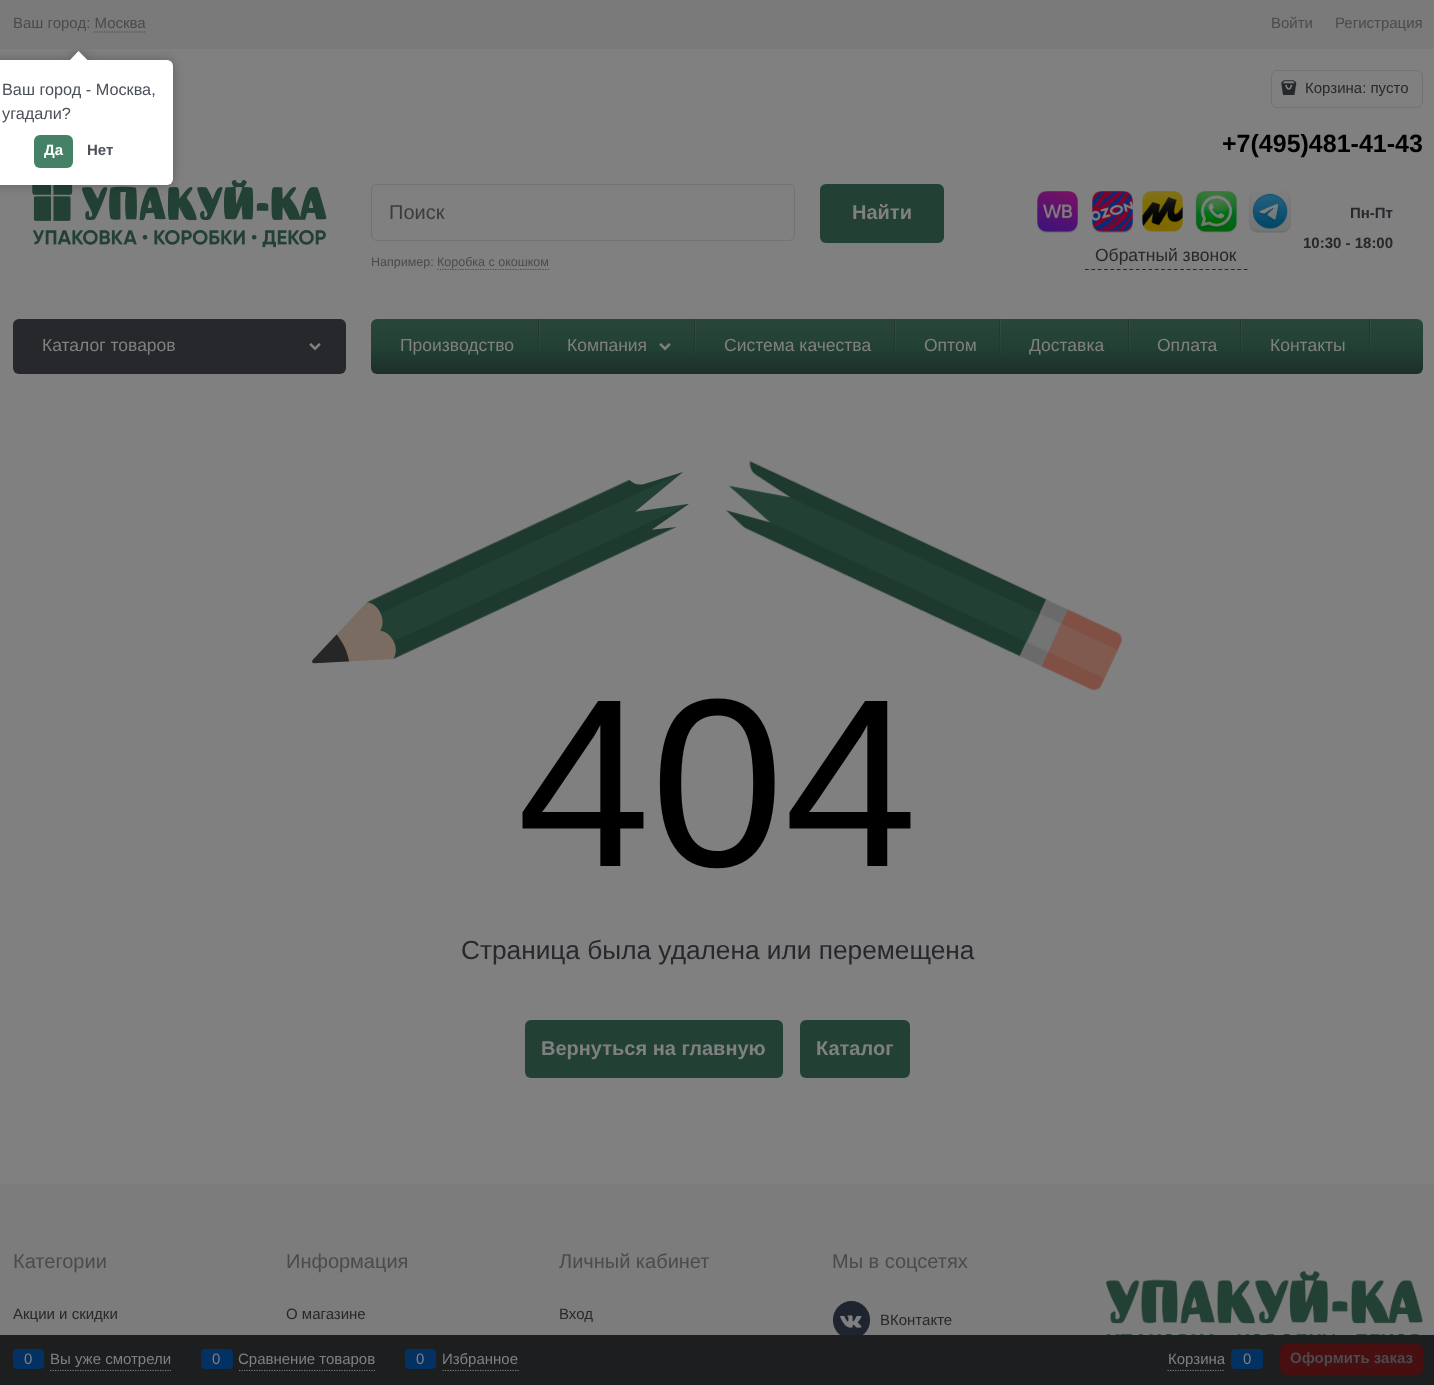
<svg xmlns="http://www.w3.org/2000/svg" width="1434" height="1385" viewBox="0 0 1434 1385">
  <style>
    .t1 { font: 15px Liberation Sans; fill: #4a4b4e; }
    .t2 { font: 20px Liberation Sans; fill: #3b3b3b; }
    .t3 { font: 12.5px Liberation Sans; fill: #4a4b4e; }
    .t4 { font: bold 20px Liberation Sans; fill: #808080; }
    .t5 { font: 15px Liberation Sans; fill: #26282c; }
    .t6 { font: bold 25px Liberation Sans; fill: #000; }
    .t7 { font: bold 15px Liberation Sans; fill: #26282c; }
    .t8 { font: 17.5px Liberation Sans; fill: #26282c; }
    .t9 { font: 17.5px Liberation Sans; fill: #808080; }
    .t10 { font: 240px Liberation Sans; fill: #000; }
    .t11 { font: 26.25px Liberation Sans; fill: #26282c; }
    .t12 { font: 20px Liberation Sans; fill: #4a4b4e; }
    .t13 { font: 15px Liberation Sans; fill: #808080; }
    .t14 { font: bold 15px Liberation Sans; fill: #4a4b4e; }
    .t15 { font: 16.25px Liberation Sans; fill: #4b4f58; }
    .t16 { font: bold 15px Liberation Sans; fill: #fff; }
    .t17 { font: bold 15px Liberation Sans; fill: #4b4f58; }
  </style>
  <defs>
    <linearGradient id="g1" gradientUnits="userSpaceOnUse" x1="897" y1="319" x2="897" y2="374"><stop offset="0" stop-color="#294639"/><stop offset="0.5" stop-color="#224134"/><stop offset="1" stop-color="#1d2e29"/></linearGradient>
    <linearGradient id="g2" gradientUnits="userSpaceOnUse" x1="539" y1="319" x2="539" y2="374"><stop offset="0" stop-color="#808080" stop-opacity="0.14"/><stop offset="0.72" stop-color="#808080" stop-opacity="0.02"/><stop offset="1" stop-color="#808080" stop-opacity="0"/></linearGradient>
    <linearGradient id="g3" gradientUnits="userSpaceOnUse" x1="538" y1="319" x2="538" y2="374"><stop offset="0" stop-color="#1d1d1d" stop-opacity="0.39"/><stop offset="0.17" stop-color="#1d1d1d" stop-opacity="0.33"/><stop offset="0.61" stop-color="#1d1d1d" stop-opacity="0.12"/><stop offset="0.96" stop-color="#1d1d1d" stop-opacity="0.01"/><stop offset="0.98" stop-color="#808080" stop-opacity="0.01"/><stop offset="1" stop-color="#808080" stop-opacity="0"/></linearGradient>
    <linearGradient id="g4" gradientUnits="userSpaceOnUse" x1="696" y1="319" x2="696" y2="374"><stop offset="0" stop-color="#808080" stop-opacity="0.14"/><stop offset="0.72" stop-color="#808080" stop-opacity="0.02"/><stop offset="1" stop-color="#808080" stop-opacity="0"/></linearGradient>
    <linearGradient id="g5" gradientUnits="userSpaceOnUse" x1="694" y1="319" x2="694" y2="374"><stop offset="0" stop-color="#1d1d1d" stop-opacity="0.39"/><stop offset="0.17" stop-color="#1d1d1d" stop-opacity="0.33"/><stop offset="0.61" stop-color="#1d1d1d" stop-opacity="0.12"/><stop offset="0.96" stop-color="#1d1d1d" stop-opacity="0.01"/><stop offset="0.98" stop-color="#808080" stop-opacity="0.01"/><stop offset="1" stop-color="#808080" stop-opacity="0"/></linearGradient>
    <linearGradient id="g6" gradientUnits="userSpaceOnUse" x1="896" y1="319" x2="896" y2="374"><stop offset="0" stop-color="#808080" stop-opacity="0.14"/><stop offset="0.72" stop-color="#808080" stop-opacity="0.02"/><stop offset="1" stop-color="#808080" stop-opacity="0"/></linearGradient>
    <linearGradient id="g7" gradientUnits="userSpaceOnUse" x1="894" y1="319" x2="894" y2="374"><stop offset="0" stop-color="#1d1d1d" stop-opacity="0.39"/><stop offset="0.17" stop-color="#1d1d1d" stop-opacity="0.33"/><stop offset="0.61" stop-color="#1d1d1d" stop-opacity="0.12"/><stop offset="0.96" stop-color="#1d1d1d" stop-opacity="0.01"/><stop offset="0.98" stop-color="#808080" stop-opacity="0.01"/><stop offset="1" stop-color="#808080" stop-opacity="0"/></linearGradient>
    <linearGradient id="g8" gradientUnits="userSpaceOnUse" x1="1001" y1="319" x2="1001" y2="374"><stop offset="0" stop-color="#808080" stop-opacity="0.14"/><stop offset="0.72" stop-color="#808080" stop-opacity="0.02"/><stop offset="1" stop-color="#808080" stop-opacity="0"/></linearGradient>
    <linearGradient id="g9" gradientUnits="userSpaceOnUse" x1="999" y1="319" x2="999" y2="374"><stop offset="0" stop-color="#1d1d1d" stop-opacity="0.39"/><stop offset="0.17" stop-color="#1d1d1d" stop-opacity="0.33"/><stop offset="0.61" stop-color="#1d1d1d" stop-opacity="0.12"/><stop offset="0.96" stop-color="#1d1d1d" stop-opacity="0.01"/><stop offset="0.98" stop-color="#808080" stop-opacity="0.01"/><stop offset="1" stop-color="#808080" stop-opacity="0"/></linearGradient>
    <linearGradient id="g10" gradientUnits="userSpaceOnUse" x1="1129" y1="319" x2="1129" y2="374"><stop offset="0" stop-color="#808080" stop-opacity="0.14"/><stop offset="0.72" stop-color="#808080" stop-opacity="0.02"/><stop offset="1" stop-color="#808080" stop-opacity="0"/></linearGradient>
    <linearGradient id="g11" gradientUnits="userSpaceOnUse" x1="1128" y1="319" x2="1128" y2="374"><stop offset="0" stop-color="#1d1d1d" stop-opacity="0.39"/><stop offset="0.17" stop-color="#1d1d1d" stop-opacity="0.33"/><stop offset="0.61" stop-color="#1d1d1d" stop-opacity="0.12"/><stop offset="0.96" stop-color="#1d1d1d" stop-opacity="0.01"/><stop offset="0.98" stop-color="#808080" stop-opacity="0.01"/><stop offset="1" stop-color="#808080" stop-opacity="0"/></linearGradient>
    <linearGradient id="g12" gradientUnits="userSpaceOnUse" x1="1242" y1="319" x2="1242" y2="374"><stop offset="0" stop-color="#808080" stop-opacity="0.14"/><stop offset="0.72" stop-color="#808080" stop-opacity="0.02"/><stop offset="1" stop-color="#808080" stop-opacity="0"/></linearGradient>
    <linearGradient id="g13" gradientUnits="userSpaceOnUse" x1="1241" y1="319" x2="1241" y2="374"><stop offset="0" stop-color="#1d1d1d" stop-opacity="0.39"/><stop offset="0.17" stop-color="#1d1d1d" stop-opacity="0.33"/><stop offset="0.61" stop-color="#1d1d1d" stop-opacity="0.12"/><stop offset="0.96" stop-color="#1d1d1d" stop-opacity="0.01"/><stop offset="0.98" stop-color="#808080" stop-opacity="0.01"/><stop offset="1" stop-color="#808080" stop-opacity="0"/></linearGradient>
    <linearGradient id="g14" gradientUnits="userSpaceOnUse" x1="1371" y1="319" x2="1371" y2="374"><stop offset="0" stop-color="#808080" stop-opacity="0.14"/><stop offset="0.72" stop-color="#808080" stop-opacity="0.02"/><stop offset="1" stop-color="#808080" stop-opacity="0"/></linearGradient>
    <linearGradient id="g15" gradientUnits="userSpaceOnUse" x1="1369" y1="319" x2="1369" y2="374"><stop offset="0" stop-color="#1d1d1d" stop-opacity="0.39"/><stop offset="0.17" stop-color="#1d1d1d" stop-opacity="0.33"/><stop offset="0.61" stop-color="#1d1d1d" stop-opacity="0.12"/><stop offset="0.96" stop-color="#1d1d1d" stop-opacity="0.01"/><stop offset="0.98" stop-color="#808080" stop-opacity="0.01"/><stop offset="1" stop-color="#808080" stop-opacity="0"/></linearGradient>
    <clipPath id="clip1"><rect x="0" y="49" width="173" height="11"/></clipPath>
    <clipPath id="clip2"><rect x="0" y="49" width="173" height="11"/></clipPath>
  </defs>
  <rect width="100%" height="100%" fill="#808080"/>
  <rect x="0" y="0" width="1434" height="49" fill="#7a7a7a"/>
  <text x="13" y="28" class="t1">Ваш город: Москва</text>
  <path d="M94 32H145" fill="none" stroke="#4a4b4e" stroke-width="1.2" stroke-dasharray="1.25 1.25"/>
  <text x="1271" y="28" class="t1">Войти</text>
  <text x="1335" y="28" class="t1">Регистрация</text>
  <image x="32" y="180" width="295" height="68" href="images/1.png"/>
  <rect x="371.5" y="184.5" width="423" height="56" rx="5.5" fill="none" stroke="#717272"/>
  <text x="389" y="219" class="t2">Поиск</text>
  <text x="371" y="266" class="t3">Например:</text>
  <path d="M437.5 269.5H549" fill="none" stroke="#4a4b4e" stroke-width="1.2" stroke-dasharray="1.25 1.25"/>
  <text x="437" y="266" class="t3">Коробка с окошком</text>
  <rect x="820" y="184" width="124" height="59" rx="6" fill="#224134"/>
  <text x="852" y="219" class="t4">Найти</text>
  <rect x="1271.5" y="70.5" width="151" height="37" rx="5.5" fill="none" stroke="#717272"/>
  <image x="1281" y="80" width="16" height="15" href="images/2.png"/>
  <text x="1305" y="93" class="t5">Корзина: пусто</text>
  <text x="1222" y="152" class="t6">+7(495)481-41-43</text>
  <text x="1350" y="218" class="t7">Пн-Пт</text>
  <text x="1303" y="248" class="t7">10:30 - 18:00</text>
  <image x="1037" y="191" width="41" height="42" href="images/3.png"/>
  <image x="1091" y="191" width="43" height="42" href="images/4.png"/>
  <image x="1142" y="191" width="41" height="41" href="images/5.png"/>
  <image x="1195" y="191" width="43" height="42" href="images/6.png"/>
  <image x="1249" y="191" width="42" height="42" href="images/7.png"/>
  <path d="M1085 269.5H1247.5" fill="none" stroke="#26282c" stroke-width="1.2" stroke-dasharray="3.75 2.6"/>
  <text x="1095" y="261" class="t8">Обратный звонок</text>
  <rect x="13" y="319" width="333" height="55" rx="6" fill="#26282c"/>
  <text x="42" y="351" class="t9">Каталог товаров</text>
  <image x="309" y="343" width="12" height="8" href="images/8.png"/>
  <rect x="371" y="319" width="1052" height="55" rx="6" fill="url(#g1)"/>
  <text x="400" y="351" class="t9">Производство</text>
  <rect x="539" y="319" width="1" height="39" fill="url(#g2)"/>
  <rect x="538" y="319" width="1" height="40" fill="url(#g3)"/>
  <text x="567" y="351" class="t9">Компания</text>
  <image x="659" y="343" width="12" height="8" href="images/9.png"/>
  <rect x="695" y="319" width="1" height="39" fill="url(#g4)"/>
  <rect x="694" y="319" width="1" height="40" fill="url(#g5)"/>
  <text x="724" y="351" class="t9">Система качества</text>
  <rect x="895" y="319" width="1" height="39" fill="url(#g6)"/>
  <rect x="894" y="319" width="1" height="40" fill="url(#g7)"/>
  <text x="924" y="351" class="t9">Оптом</text>
  <rect x="1000" y="319" width="1" height="39" fill="url(#g8)"/>
  <rect x="999" y="319" width="1" height="40" fill="url(#g9)"/>
  <text x="1029" y="351" class="t9">Доставка</text>
  <rect x="1129" y="319" width="1" height="39" fill="url(#g10)"/>
  <rect x="1128" y="319" width="1" height="40" fill="url(#g11)"/>
  <text x="1157" y="351" class="t9">Оплата</text>
  <rect x="1241" y="319" width="1" height="39" fill="url(#g12)"/>
  <rect x="1240" y="319" width="1" height="40" fill="url(#g13)"/>
  <text x="1270" y="351" class="t9">Контакты</text>
  <rect x="1370" y="319" width="1" height="39" fill="url(#g14)"/>
  <rect x="1369" y="319" width="1" height="40" fill="url(#g15)"/>
  <image x="312" y="460" width="810" height="231" href="images/10.png"/>
  <text x="517" y="866" class="t10">404</text>
  <text x="461" y="959" class="t11">Страница была удалена или перемещена</text>
  <rect x="525" y="1020" width="258" height="58" rx="6" fill="#224134"/>
  <text x="541" y="1055" class="t4">Вернуться на главную</text>
  <rect x="800" y="1020" width="110" height="58" rx="6" fill="#224134"/>
  <text x="816" y="1055" class="t4">Каталог</text>
  <rect x="0" y="1184" width="1434" height="151" fill="#7c7c7c"/>
  <text x="13" y="1268" class="t12">Категории</text>
  <text x="13" y="1319" class="t5">Акции и скидки</text>
  <text x="286" y="1268" class="t12">Информация</text>
  <text x="286" y="1319" class="t5">О магазине</text>
  <text x="559" y="1268" class="t12">Личный кабинет</text>
  <text x="559" y="1319" class="t5">Вход</text>
  <text x="832" y="1268" class="t12">Мы в соцсетях</text>
  <rect x="833" y="1301" width="37" height="38" rx="18.5" fill="#1e2530"/>
  <image x="840" y="1315" width="22" height="13" href="images/11.png"/>
  <text x="880" y="1325" class="t5">ВКонтакте</text>
  <image x="1106" y="1271" width="317" height="64" href="images/12.png"/>
  <rect x="0" y="1335" width="1434" height="50" fill="#1c1e20"/>
  <path d="M50 1370.5H171" fill="none" stroke="#808080" stroke-width="1.2" stroke-dasharray="1.25 1.25"/>
  <rect x="13" y="1349" width="31" height="20" rx="4" fill="#033161"/>
  <text x="24" y="1364" class="t13">0</text>
  <text x="50" y="1364" class="t13">Вы уже смотрели</text>
  <path d="M239 1370.5H375" fill="none" stroke="#808080" stroke-width="1.2" stroke-dasharray="1.25 1.25"/>
  <rect x="201" y="1349" width="32" height="20" rx="4" fill="#033161"/>
  <text x="212" y="1364" class="t13">0</text>
  <text x="238" y="1364" class="t13">Сравнение товаров</text>
  <path d="M442.5 1370.5H519" fill="none" stroke="#808080" stroke-width="1.2" stroke-dasharray="1.25 1.25"/>
  <rect x="405" y="1349" width="31" height="20" rx="4" fill="#033161"/>
  <text x="416" y="1364" class="t13">0</text>
  <text x="442" y="1364" class="t13">Избранное</text>
  <path d="M1167.5 1370.5H1225" fill="none" stroke="#808080" stroke-width="1.2" stroke-dasharray="1.25 1.25"/>
  <text x="1168" y="1364" class="t13">Корзина</text>
  <rect x="1231" y="1349" width="32" height="20" rx="4" fill="#033161"/>
  <text x="1243" y="1364" class="t13">0</text>
  <rect x="1280" y="1344" width="143" height="31" rx="6" fill="#470f10"/>
  <text x="1290" y="1363" class="t14">Оформить заказ</text>
  <rect x="-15" y="60" width="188" height="125" rx="6" fill="#00000040" filter="blur(5.5px)"/>
  <rect x="-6" y="60" width="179" height="125" rx="6" fill="#fff"/>
  <g clip-path="url(#clip1)">
    <rect x="73" y="54" width="12" height="12" fill="#00000040" filter="blur(5.5px)"/>
  </g>
  <g clip-path="url(#clip2)">
    <path d="M78.5 51L87.5 60L78.5 69L70 60Z" fill="#fff"/>
  </g>
  <text x="2" y="95" class="t15">Ваш город - Москва,</text>
  <text x="2" y="119" class="t15">угадали?</text>
  <rect x="34" y="135" width="39" height="33" rx="6" fill="#448167"/>
  <text x="44" y="155" class="t16">Да</text>
  <text x="87" y="155" class="t17">Нет</text>
</svg>
